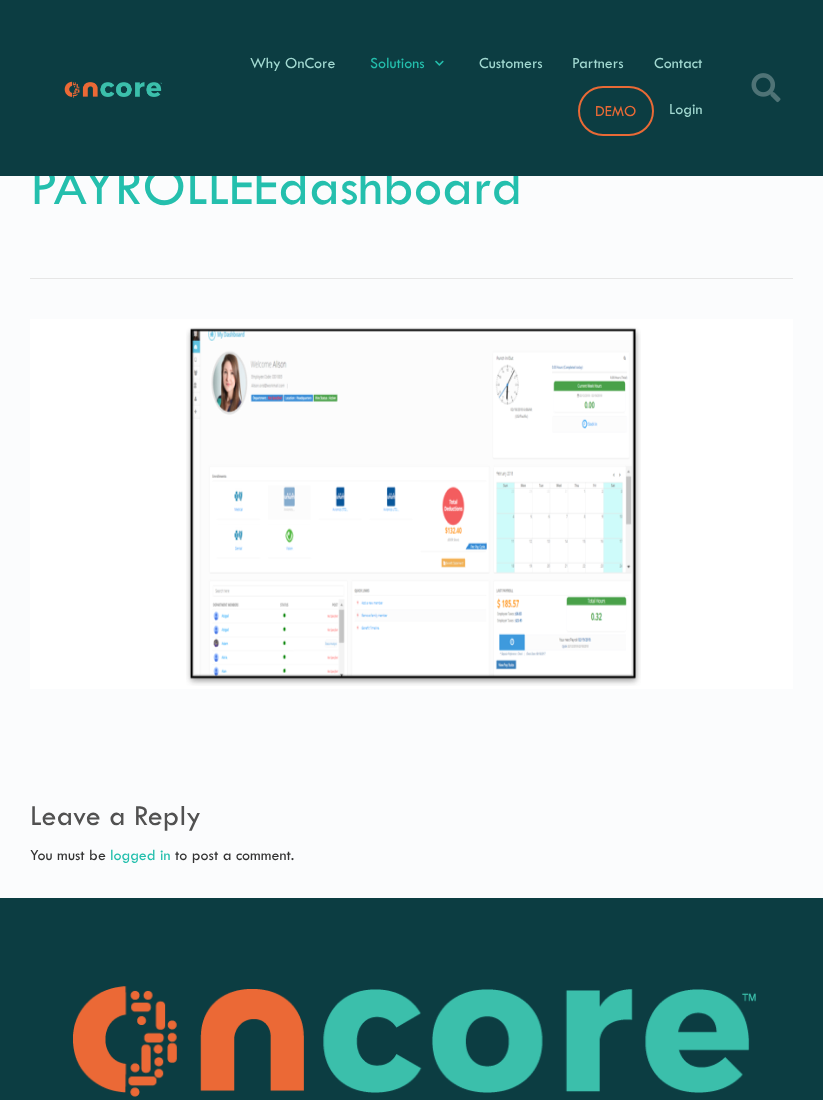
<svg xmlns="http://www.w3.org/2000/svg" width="823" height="1100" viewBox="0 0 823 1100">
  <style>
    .t1 { font: 56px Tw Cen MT; fill: #24bfad; }
    .t2 { font: 16px Tw Cen MT; fill: #a2d9d1; }
    .t3 { font: 16px Tw Cen MT; fill: #24bfad; }
    .t4 { font: 16px Tw Cen MT; fill: #e96a36; }
    .t5 { font: 30px Tw Cen MT; fill: #515151; }
    .t6 { font: 16px Tw Cen MT; fill: #333; }
  </style>
  <rect width="100%" height="100%" fill="#fbfcfd"/>
  <text x="30" y="204" class="t1">PAYROLLEEdashboard</text>
  <rect x="0" y="0" width="823" height="176" fill="#0c3d42"/>
  <image x="64" y="81" width="98" height="17" href="images/1.png"/>
  <text x="250" y="68" class="t2">Why OnCore</text>
  <text x="370" y="68" class="t3">Solutions</text>
  <image x="435" y="60" width="9" height="6" href="images/2.png"/>
  <text x="479" y="68" class="t2">Customers</text>
  <text x="572" y="68" class="t2">Partners</text>
  <text x="654" y="68" class="t2">Contact</text>
  <rect x="579" y="87" width="74" height="48" rx="24" fill="none" stroke="#e96a36" stroke-width="2"/>
  <text x="595" y="116" class="t4">DEMO</text>
  <text x="669" y="114" class="t2">Login</text>
  <image x="751" y="73" width="30" height="30" href="images/3.png"/>
  <rect x="30" y="278" width="763" height="1" fill="#e6e6e6"/>
  <rect x="30" y="319" width="763" height="370" fill="#fff"/>
  <image x="186" y="327" width="455" height="359" href="images/4.png"/>
  <text x="30" y="825" class="t5">Leave a Reply</text>
  <text x="30" y="860" class="t6">You must be</text>
  <text x="110" y="860" class="t3">logged in</text>
  <text x="175" y="860" class="t6">to post a comment.</text>
  <rect x="0" y="898" width="823" height="202" fill="#0c3d42"/>
  <image x="73" y="986" width="683" height="111" href="images/5.png"/>
</svg>
